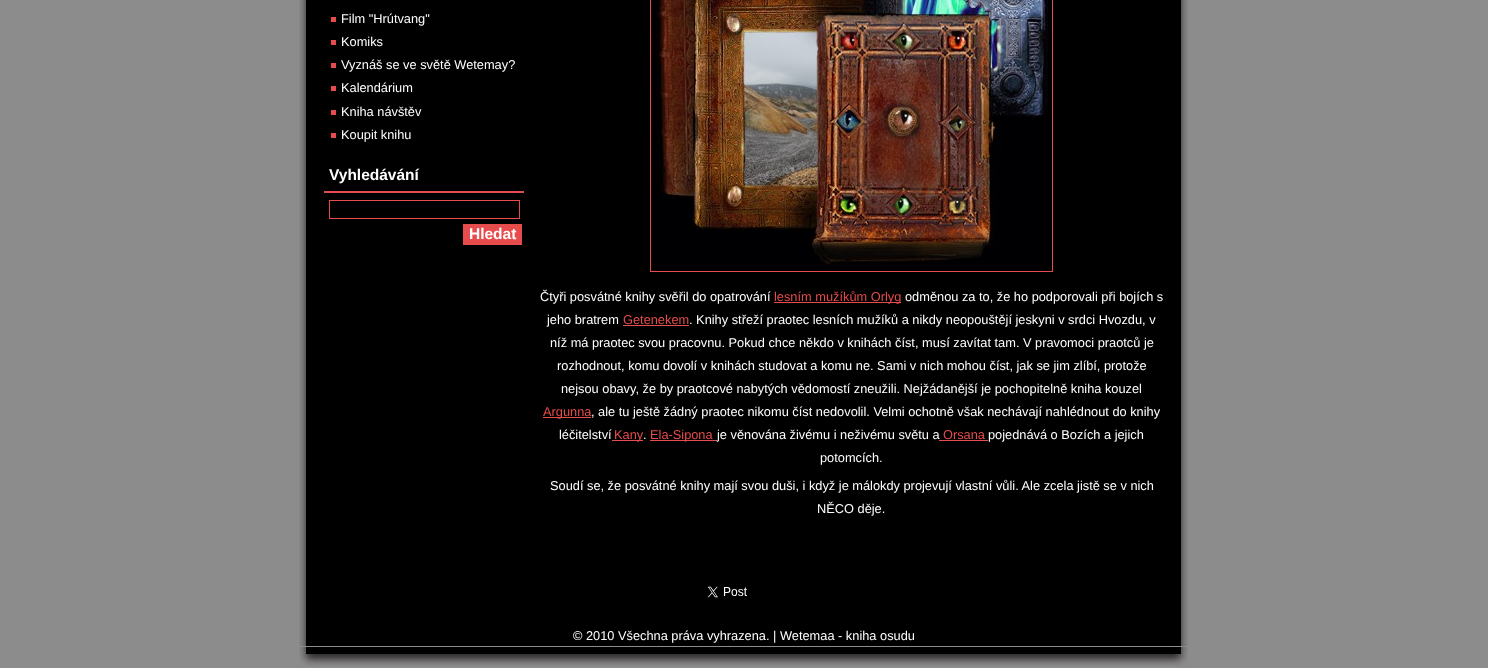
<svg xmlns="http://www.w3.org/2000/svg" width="1488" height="668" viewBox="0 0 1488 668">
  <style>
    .t1 { font: 12.8px Liberation Sans; fill: #fff; }
    .t2 { font: bold 15.5px Liberation Sans; fill: #fff; }
    .t3 { font: 12.8px Liberation Sans; fill: #e74c4c; }
  </style>
  <rect width="100%" height="100%" fill="#8c8c8c"/>
  <image x="299" y="0" width="889" height="218" href="images/1.png"/>
  <image x="299" y="218" width="889" height="410" href="images/2.png"/>
  <text x="341" y="23" class="t1">Film "Hrútvang"</text>
  <rect x="331" y="17" width="5" height="5" fill="#e74b4c"/>
  <text x="341" y="46" class="t1">Komiks</text>
  <rect x="331" y="40" width="5" height="5" fill="#e74b4c"/>
  <text x="341" y="69" class="t1">Vyznáš se ve světě Wetemay?</text>
  <rect x="331" y="63" width="5" height="5" fill="#e74b4c"/>
  <text x="341" y="92" class="t1">Kalendárium</text>
  <rect x="331" y="86" width="5" height="5" fill="#e74b4c"/>
  <text x="341" y="116" class="t1">Kniha návštěv</text>
  <rect x="331" y="110" width="5" height="5" fill="#e74b4c"/>
  <text x="341" y="139" class="t1">Koupit knihu</text>
  <rect x="331" y="133" width="5" height="5" fill="#e74b4c"/>
  <rect x="324" y="191" width="200" height="2" fill="#e74c4c"/>
  <text x="329" y="180" class="t2">Vyhledávání</text>
  <rect x="329.5" y="200.5" width="190" height="18" fill="none" stroke="#e74c4c"/>
  <rect x="463" y="224" width="59" height="21" fill="#e74c4c"/>
  <text x="469" y="239" class="t2">Hledat</text>
  <rect x="650.5" y="-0.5" width="402" height="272" fill="none" stroke="#e74c4c"/>
  <image x="651" y="0" width="400" height="266" href="images/3.png"/>
  <text x="540" y="301" class="t1">Čtyři posvátné knihy svěřil do opatrování</text>
  <rect x="774" y="302" width="127" height="1" fill="#e74c4c"/>
  <text x="774" y="301" class="t3">lesním mužíkům Orlyg</text>
  <text x="905" y="301" class="t1">odměnou za to, že ho podporovali při bojích s</text>
  <text x="547" y="324" class="t1">jeho bratrem</text>
  <text x="623" y="324" class="t3">Getenekem</text>
  <rect x="623" y="325" width="66" height="1" fill="#e74c4c"/>
  <text x="689" y="324" class="t1">. Knihy střeží praotec lesních mužíků a nikdy neopouštějí jeskyni v srdci Hvozdu, v</text>
  <text x="550" y="347" class="t1">níž má praotec svou pracovnu. Pokud chce někdo v knihách číst, musí zavítat tam. V pravomoci praotců je</text>
  <text x="557" y="370" class="t1">rozhodnout, komu dovolí v knihách studovat a komu ne. Sami v nich mohou číst, jak se jim zlíbí, protože</text>
  <text x="561" y="393" class="t1">nejsou obavy, že by praotcové nabytých vědomostí zneužili. Nejžádanější je pochopitelně kniha kouzel</text>
  <rect x="543" y="417" width="48" height="1" fill="#e74c4c"/>
  <text x="543" y="416" class="t3">Argunna</text>
  <text x="591" y="416" class="t1">, ale tu ještě žádný praotec nikomu číst nedovolil. Velmi ochotně však nechávají nahlédnout do knihy</text>
  <text x="559" y="439" class="t1">léčitelství</text>
  <rect x="612" y="440" width="31" height="1" fill="#e74c4c"/>
  <text x="614" y="439" class="t3">Kany</text>
  <text x="643" y="439" class="t1">.</text>
  <rect x="650" y="440" width="67" height="1" fill="#e74c4c"/>
  <text x="650" y="439" class="t3">Ela-Sipona</text>
  <text x="717" y="439" class="t1">je věnována živému i neživému světu a</text>
  <text x="943" y="439" class="t3">Orsana</text>
  <rect x="939" y="440" width="49" height="1" fill="#e74c4c"/>
  <text x="988" y="439" class="t1">pojednává o Bozích a jejich</text>
  <text x="820" y="462" class="t1">potomcích.</text>
  <text x="550" y="490" class="t1">Soudí se, že posvátné knihy mají svou duši, i když je málokdy projevují vlastní vůli. Ale zcela jistě se v nich</text>
  <text x="817" y="513" class="t1">NĚCO děje.</text>
  <image x="707" y="586" width="40" height="12" href="images/4.png"/>
  <image x="299" y="647" width="889" height="19" href="images/5.png"/>
  <image x="299" y="628" width="889" height="18" href="images/6.png"/>
  <text x="573" y="640" class="t1">© 2010 Všechna práva vyhrazena. | Wetemaa - kniha osudu</text>
</svg>
